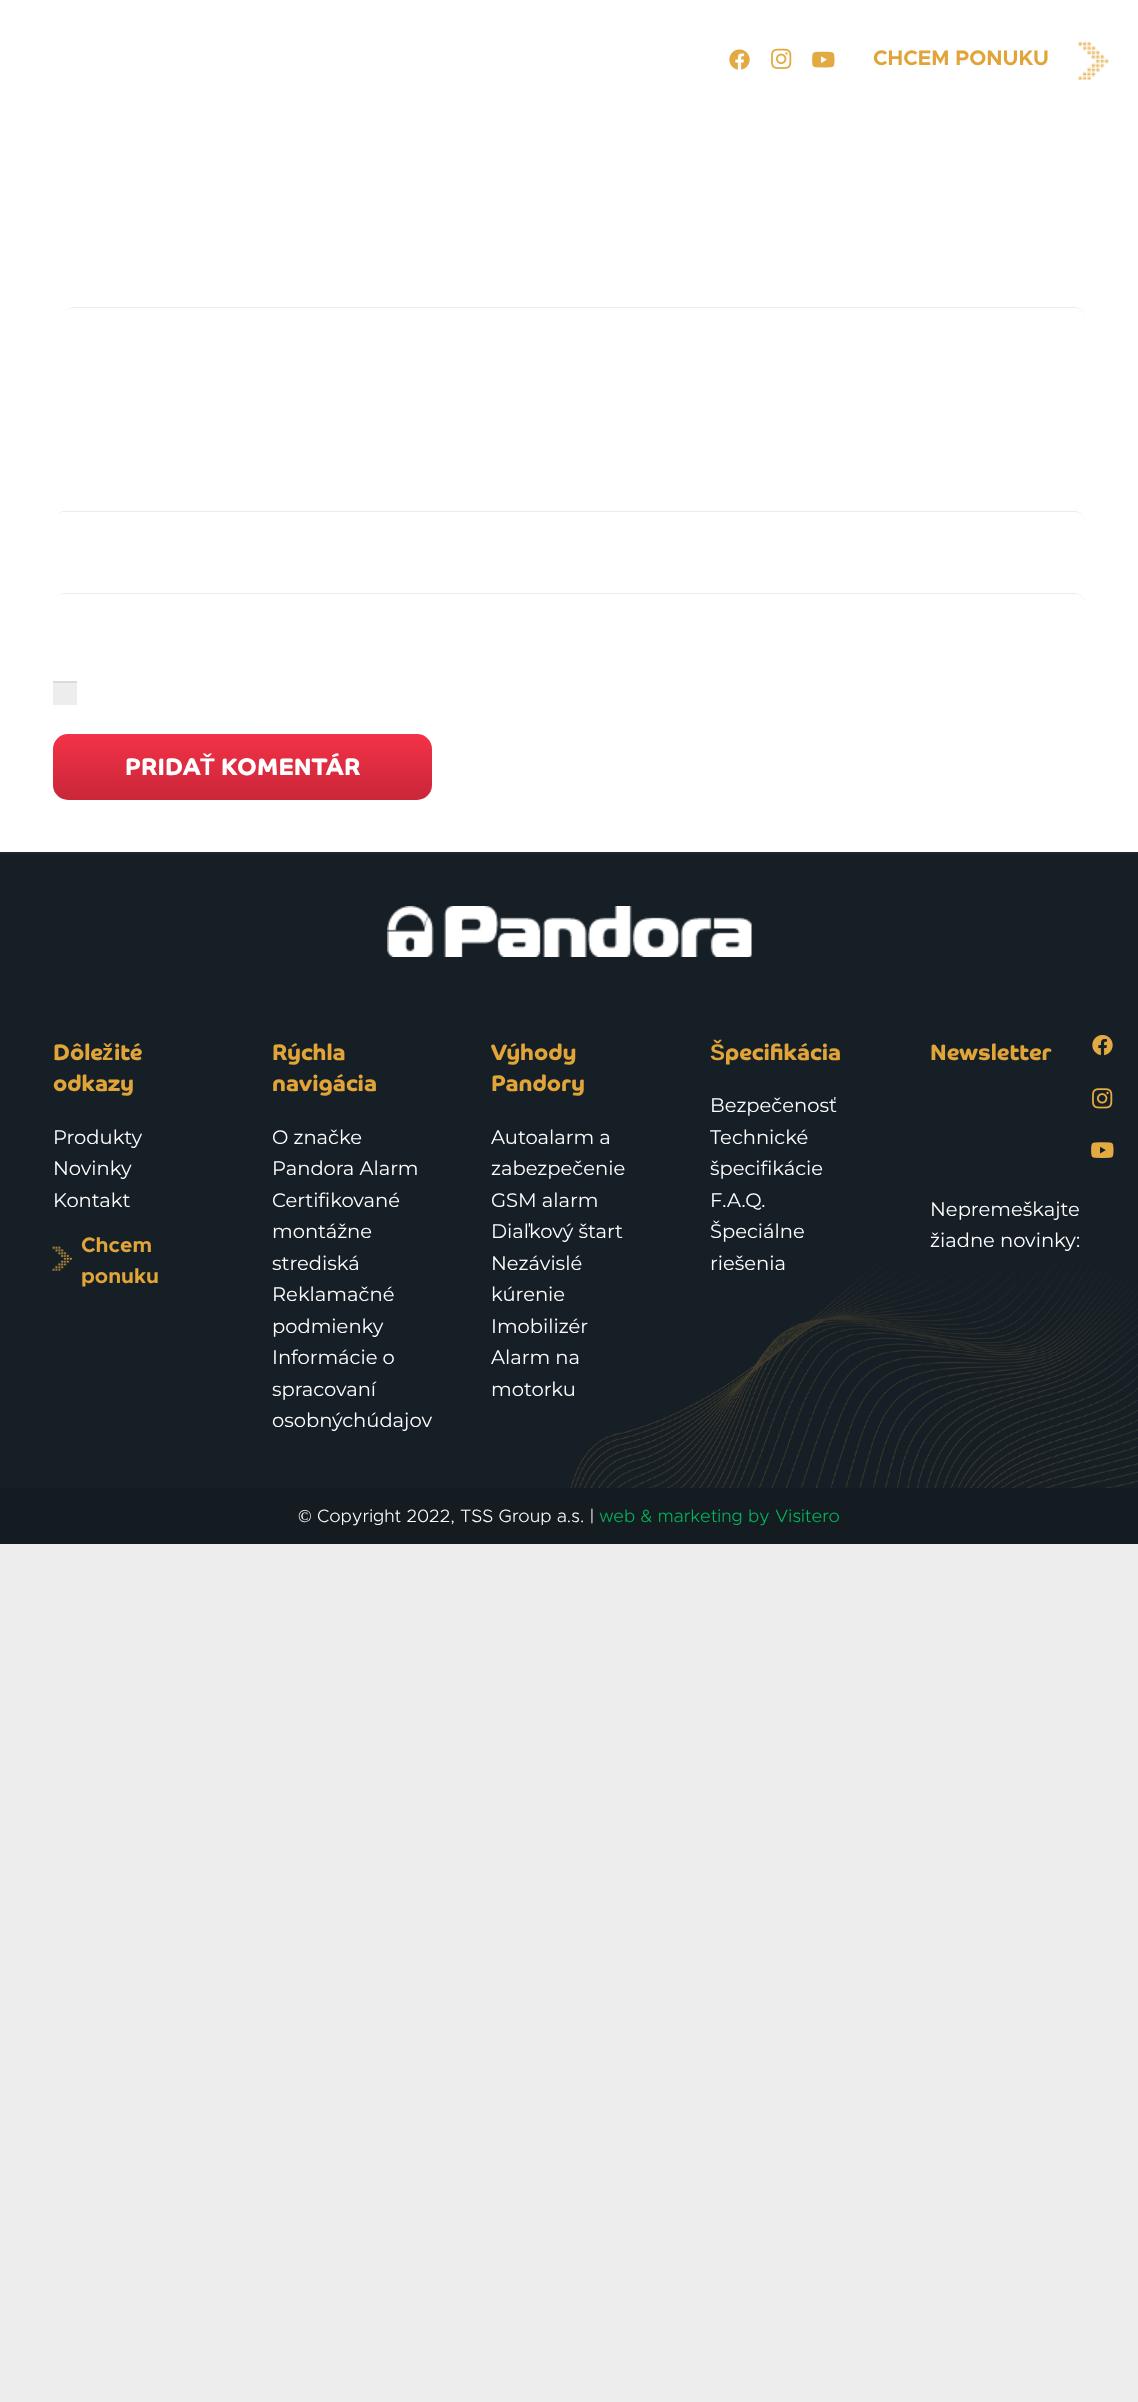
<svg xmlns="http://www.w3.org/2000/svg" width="1138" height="2402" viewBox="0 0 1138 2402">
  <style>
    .t1 { font: bold 21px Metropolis; fill: #e0a439; }
    .t2 { font: bold 24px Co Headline; fill: #fff; }
    .t3 { font: bold 24px Liberation Sans; fill: #fff; }
    .t4 { font: bold 22.5px Co Headline; fill: #e0a439; }
    .t5 { font: bold 22.5px Liberation Sans; fill: #e0a439; }
    .t6 { font: 19.5px Montserrat; fill: #fff; }
    .t7 { font: 18px Liberation Serif; fill: #fff; }
    .t8 { font: 300 18px Metropolis; fill: #fff; }
    .t9 { font: 300 18px Metropolis; fill: #00b75c; }
  </style>
  <defs>
    <linearGradient id="g1" gradientUnits="userSpaceOnUse" x1="242" y1="734" x2="242" y2="800"><stop offset="0" stop-color="#f33247"/><stop offset="1" stop-color="#ca2639"/></linearGradient>
  </defs>
  <rect width="100%" height="100%" fill="#ededed"/>
  <rect x="0" y="0" width="1138" height="852" fill="#fff"/>
  <image x="729" y="49" width="21" height="21" href="images/1.png"/>
  <image x="771" y="48" width="21" height="21" href="images/2.png"/>
  <image x="812" y="51" width="23" height="17" href="images/3.png"/>
  <text x="873" y="65" class="t1">CHCEM PONUKU</text>
  <image x="1078" y="41" width="31" height="39" href="images/4.png"/>
  <path d="M74 308H1076C1080 308 1084 312 1084 316V464C1084 465 1084 467 1083 468C1084 466 1085 464 1085 462V315C1085 310 1081 306 1076 306H74C70 306 67 309 65 312C67 310 71 308 74 308Z" fill="#ebebeb"/>
  <rect x="64" y="306" width="1021" height="166" rx="10" fill="none" stroke="#fff" stroke-width="2"/>
  <path d="M63 512H1076C1080 512 1084 516 1084 520V561C1084 563 1083 565 1082 567C1084 565 1085 563 1085 560V519C1085 514 1081 510 1076 510H63C58 510 54 514 54 519V520C54 516 58 512 63 512Z" fill="#ebebeb"/>
  <rect x="54" y="510" width="1031" height="59" rx="10" fill="none" stroke="#fff" stroke-width="2"/>
  <path d="M63 594H1076C1080 594 1084 598 1084 603V644C1084 645 1084 647 1083 648C1084 646 1085 644 1085 642V602C1085 597 1081 593 1076 593H63C58 593 54 597 54 602V603C54 598 58 594 63 594Z" fill="#ebebeb"/>
  <rect x="54" y="592" width="1031" height="60" rx="10" fill="none" stroke="#fff" stroke-width="2"/>
  <rect x="53" y="683" width="24" height="22" fill="#ededed"/>
  <rect x="53" y="681" width="24" height="2" fill="#dadada"/>
  <rect x="53" y="734" width="379" height="66" rx="15" fill="url(#g1)"/>
  <text x="125" y="775" class="t2">PRIDA</text>
  <text x="200" y="775" class="t3">Ť</text>
  <text x="221" y="775" class="t2">KOMENTÁR</text>
  <rect x="0" y="854" width="1138" height="634" fill="#161f26"/>
  <image x="570" y="1252" width="568" height="236" href="images/5.png"/>
  <rect x="0" y="852" width="1138" height="2" fill="#1e272e"/>
  <image x="387" y="906" width="365" height="51" href="images/6.png"/>
  <text x="53" y="1060" class="t4">Dôle</text>
  <text x="102" y="1060" class="t5">ž</text>
  <text x="114" y="1060" class="t4">ité</text>
  <text x="53" y="1091" class="t4">odkazy</text>
  <text x="53" y="1144" class="t6">Produkty</text>
  <text x="53" y="1175" class="t6">Novinky</text>
  <text x="53" y="1207" class="t6">Kontakt</text>
  <image x="52" y="1246" width="20" height="25" href="images/7.png"/>
  <text x="81" y="1252" class="t1">Chcem</text>
  <text x="81" y="1283" class="t1">ponuku</text>
  <text x="272" y="1060" class="t4">Rýchla</text>
  <text x="272" y="1091" class="t4">navigácia</text>
  <text x="272" y="1144" class="t6">O značke</text>
  <text x="272" y="1175" class="t6">Pandora Alarm</text>
  <text x="272" y="1207" class="t6">Certifikované</text>
  <text x="272" y="1238" class="t6">montážne</text>
  <text x="272" y="1270" class="t6">strediská</text>
  <text x="272" y="1301" class="t6">Reklamačné</text>
  <text x="272" y="1333" class="t6">podmienky</text>
  <text x="272" y="1364" class="t6">Informácie o</text>
  <text x="272" y="1396" class="t6">spracovaní</text>
  <text x="272" y="1427" class="t6">osobnýchúdajov</text>
  <text x="491" y="1060" class="t4">Výhody</text>
  <text x="491" y="1091" class="t4">Pandory</text>
  <text x="491" y="1144" class="t6">Autoalarm a</text>
  <text x="491" y="1175" class="t6">zabezpečenie</text>
  <text x="491" y="1207" class="t6">GSM alarm</text>
  <text x="491" y="1238" class="t6">Diaľkový štart</text>
  <text x="491" y="1270" class="t6">Nezávislé</text>
  <text x="491" y="1301" class="t6">kúrenie</text>
  <text x="491" y="1333" class="t6">Imobilizér</text>
  <text x="491" y="1364" class="t6">Alarm na</text>
  <text x="491" y="1396" class="t6">motorku</text>
  <text x="710" y="1060" class="t5">Š</text>
  <text x="725" y="1060" class="t4">pecifikácia</text>
  <text x="710" y="1112" class="t6">Bezpečenosť</text>
  <text x="710" y="1144" class="t6">Technické</text>
  <text x="710" y="1175" class="t6">špecifikácie</text>
  <text x="710" y="1207" class="t6">F.A.Q.</text>
  <text x="710" y="1238" class="t6">Špeciálne</text>
  <text x="710" y="1270" class="t6">riešenia</text>
  <text x="930" y="1060" class="t4">Newsletter</text>
  <image x="1092" y="1035" width="21" height="21" href="images/8.png"/>
  <image x="1092" y="1088" width="21" height="21" href="images/9.png"/>
  <image x="1091" y="1142" width="23" height="16" href="images/10.png"/>
  <text x="930" y="1216" class="t6">Nepremeškajte</text>
  <text x="930" y="1247" class="t6">žiadne novinky:</text>
  <rect x="0" y="1488" width="1138" height="56" fill="#141b21"/>
  <text x="298" y="1522" class="t7">©</text>
  <text x="317" y="1522" class="t8">Copyright 2022, TSS Group a.s. |</text>
  <text x="599" y="1522" class="t9">web &amp; marketing by Visitero</text>
</svg>
